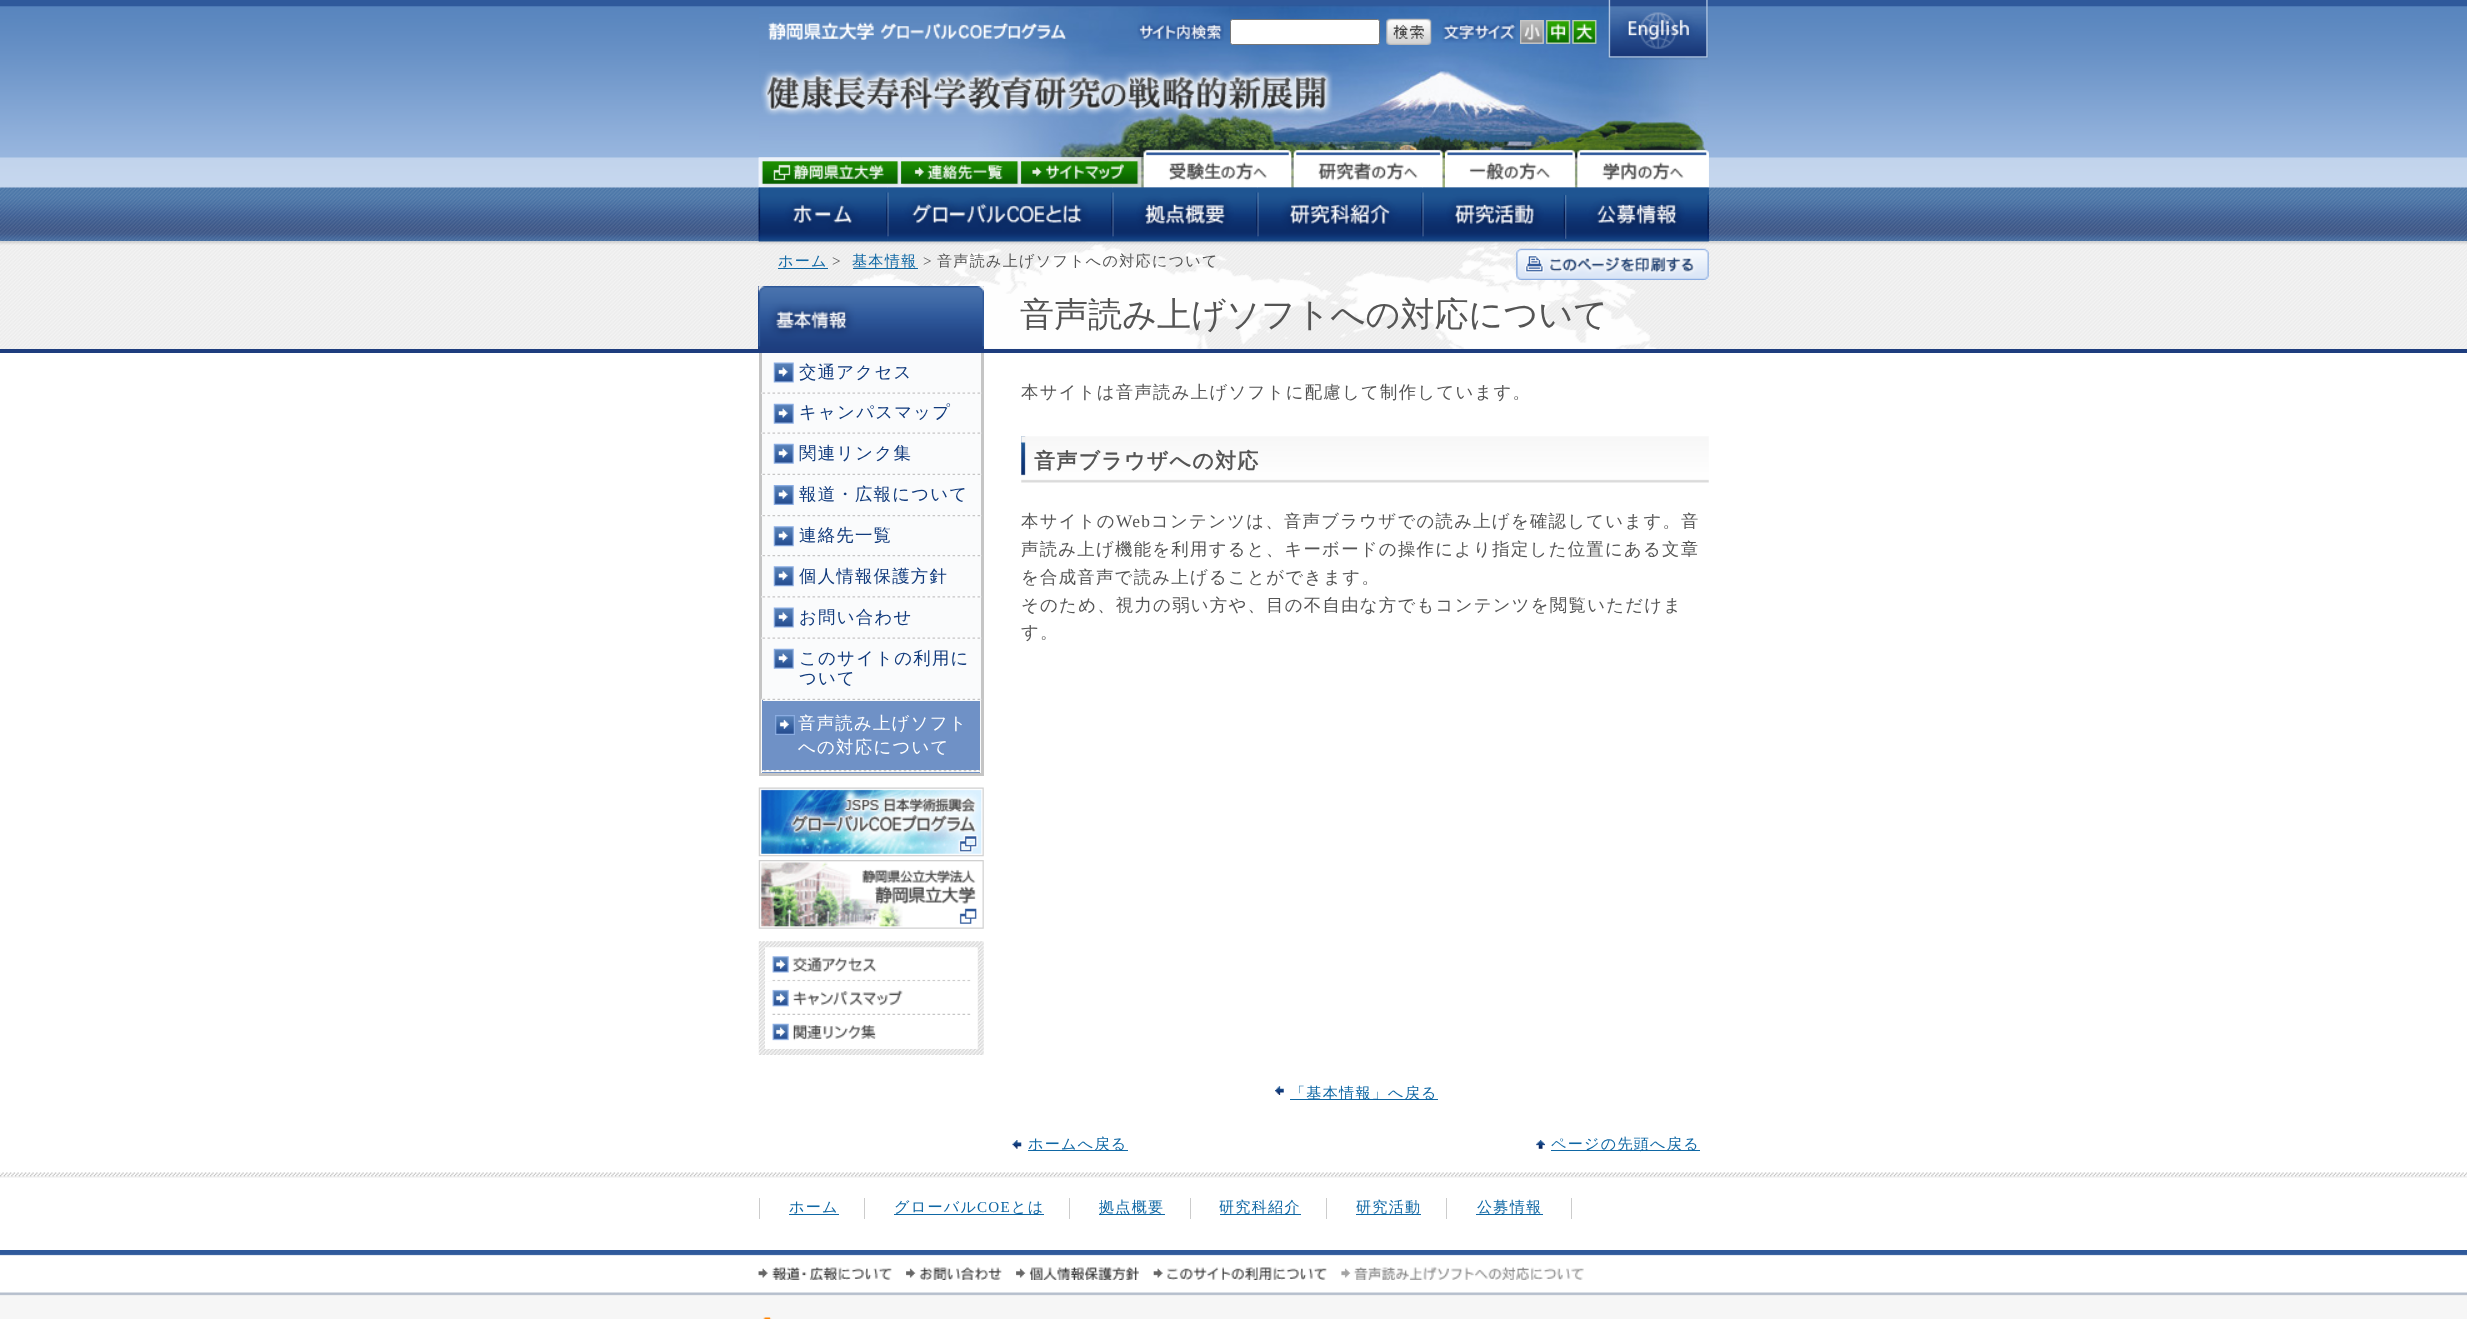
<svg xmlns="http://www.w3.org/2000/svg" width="2467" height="1319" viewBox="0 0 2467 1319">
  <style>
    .t1 { font: 500 15.1px WenQuanYi Zen Hei; letter-spacing: 1.25px; fill: #0f67a4; }
    .t2 { font: 15.1px Liberation Serif; letter-spacing: 1.25px; fill: #555; }
    .t3 { font: 500 15.1px WenQuanYi Zen Hei; letter-spacing: 1.25px; fill: #555; }
    .t4 { font: 500 34.1px WenQuanYi Zen Hei; fill: #555; }
    .t5 { font: 500 17.4px WenQuanYi Zen Hei; letter-spacing: 1.25px; fill: #103a7c; }
    .t6 { font: 500 17.4px WenQuanYi Zen Hei; letter-spacing: 1.25px; fill: #fff; }
    .t7 { font: 500 17.4px WenQuanYi Zen Hei; letter-spacing: 1.25px; fill: #555; }
    .t8 { font: bold 21px WenQuanYi Zen Hei; letter-spacing: 1.25px; fill: #555; }
    .t9 { font: 17.4px Liberation Serif; letter-spacing: 1.25px; fill: #555; }
    .t10 { font: 15.1px Liberation Serif; letter-spacing: 1.25px; fill: #0f67a4; }
  </style>
  <rect width="100%" height="100%" fill="#fff"/>
  <image x="0" y="0" width="2467" height="242" href="images/1.png"/>
  <image x="759" y="5" width="950" height="153" href="images/2.png"/>
  <image x="768" y="22" width="299" height="18" href="images/3.png"/>
  <image x="1137" y="22" width="87" height="19" href="images/4.png"/>
  <rect x="1230.5" y="19.5" width="149" height="25" rx="2" fill="#fff" stroke="#767676"/>
  <image x="1386" y="18" width="46" height="27" href="images/5.png"/>
  <image x="1442" y="21" width="74" height="22" href="images/6.png"/>
  <image x="1520" y="20" width="24" height="24" href="images/7.png"/>
  <image x="1520" y="20" width="24" height="24" href="images/8.png"/>
  <image x="1546" y="20" width="25" height="24" href="images/9.png"/>
  <image x="1546" y="20" width="25" height="24" href="images/10.png"/>
  <image x="1572" y="20" width="25" height="24" href="images/11.png"/>
  <image x="1572" y="20" width="25" height="24" href="images/12.png"/>
  <image x="1607" y="0" width="102" height="60" href="images/13.png"/>
  <image x="761" y="69" width="572" height="48" href="images/14.png"/>
  <image x="758" y="157" width="144" height="31" href="images/15.png"/>
  <image x="901" y="157" width="121" height="31" href="images/17.png"/>
  <image x="0" y="241" width="2467" height="108" href="images/41.png"/>
  <image x="759" y="241" width="950" height="108" href="images/42.png"/>
  <image x="758" y="187" width="130" height="55" href="images/29.png"/>
  <image x="1021" y="157" width="123" height="31" href="images/19.png"/>
  <image x="887" y="187" width="226" height="55" href="images/31.png"/>
  <image x="758" y="157" width="144" height="31" href="images/16.png"/>
  <image x="901" y="157" width="121" height="31" href="images/18.png"/>
  <image x="1143" y="142" width="151" height="46" href="images/21.png"/>
  <image x="1112" y="187" width="146" height="55" href="images/33.png"/>
  <image x="1021" y="157" width="123" height="31" href="images/20.png"/>
  <image x="1293" y="142" width="152" height="46" href="images/23.png"/>
  <image x="1257" y="187" width="166" height="55" href="images/35.png"/>
  <image x="1143" y="142" width="151" height="46" href="images/22.png"/>
  <image x="1445" y="142" width="133" height="46" href="images/25.png"/>
  <image x="1422" y="187" width="143" height="55" href="images/37.png"/>
  <image x="1293" y="142" width="152" height="46" href="images/24.png"/>
  <image x="1577" y="142" width="132" height="46" href="images/27.png"/>
  <image x="1565" y="187" width="144" height="55" href="images/39.png"/>
  <image x="1445" y="142" width="133" height="46" href="images/26.png"/>
  <image x="1577" y="142" width="132" height="46" href="images/28.png"/>
  <image x="758" y="187" width="130" height="55" href="images/30.png"/>
  <image x="887" y="187" width="226" height="55" href="images/32.png"/>
  <image x="1112" y="187" width="146" height="55" href="images/34.png"/>
  <image x="1257" y="187" width="166" height="55" href="images/36.png"/>
  <image x="1422" y="187" width="143" height="55" href="images/38.png"/>
  <image x="1565" y="187" width="144" height="55" href="images/40.png"/>
  <rect x="0" y="349" width="2467" height="4" fill="#1e3d7e"/>
  <text x="778" y="266" class="t1">ホーム</text>
  <rect x="778" y="268" width="50" height="1" fill="#0f67a4"/>
  <text x="832" y="266" class="t2">&gt;</text>
  <text x="852" y="266" class="t1">基本情報</text>
  <rect x="853" y="268" width="65" height="1" fill="#0f67a4"/>
  <text x="923" y="266" class="t2">&gt;</text>
  <text x="937" y="266" class="t3">音声読み上げソフトへの対応について</text>
  <image x="1516" y="248" width="193" height="32" href="images/43.png"/>
  <rect x="758" y="286" width="226" height="63" fill="#1e3e7f"/>
  <image x="758" y="286" width="226" height="61" href="images/44.png"/>
  <image x="758" y="286" width="226" height="60" href="images/45.png"/>
  <text x="1020" y="326" class="t4">音声読み上げソフトへの対応について</text>
  <rect x="762" y="353" width="219" height="346" fill="#fafbfc"/>
  <rect x="981" y="353" width="3" height="422" fill="#c5c5c5"/>
  <rect x="759" y="773" width="225" height="3" fill="#c5c5c5"/>
  <rect x="759" y="353" width="3" height="422" fill="#c5c5c5"/>
  <image x="761" y="392" width="221" height="2" href="images/46.png"/>
  <image x="773" y="362" width="21" height="21" href="images/47.png"/>
  <text x="799" y="378" class="t5">交通アクセス</text>
  <image x="761" y="432" width="221" height="2" href="images/46.png"/>
  <image x="773" y="403" width="21" height="21" href="images/48.png"/>
  <text x="799" y="418" class="t5">キャンパスマップ</text>
  <image x="761" y="473" width="221" height="2" href="images/49.png"/>
  <image x="773" y="443" width="21" height="21" href="images/48.png"/>
  <text x="799" y="459" class="t5">関連リンク集</text>
  <image x="761" y="515" width="221" height="2" href="images/50.png"/>
  <image x="773" y="485" width="21" height="20" href="images/51.png"/>
  <text x="799" y="500" class="t5">報道・広報について</text>
  <image x="761" y="555" width="221" height="2" href="images/50.png"/>
  <image x="773" y="526" width="21" height="21" href="images/52.png"/>
  <text x="799" y="541" class="t5">連絡先一覧</text>
  <image x="761" y="596" width="221" height="2" href="images/53.png"/>
  <image x="773" y="566" width="21" height="21" href="images/52.png"/>
  <text x="799" y="582" class="t5">個人情報保護方針</text>
  <image x="761" y="637" width="221" height="2" href="images/46.png"/>
  <image x="773" y="607" width="21" height="21" href="images/47.png"/>
  <text x="799" y="623" class="t5">お問い合わせ</text>
  <image x="761" y="698" width="221" height="2" href="images/49.png"/>
  <image x="773" y="648" width="21" height="21" href="images/48.png"/>
  <text x="799" y="664" class="t5">このサイトの利用に</text>
  <text x="799" y="684" class="t5">ついて</text>
  <rect x="762" y="700" width="218" height="73" fill="#6f91c6"/>
  <image x="775" y="715" width="20" height="20" href="images/54.png"/>
  <rect x="980" y="700" width="1" height="73" fill="#fafbfc"/>
  <rect x="761" y="771" width="220" height="1" fill="#fafbfc"/>
  <rect x="761" y="700" width="1" height="73" fill="#fafbfc"/>
  <rect x="763" y="700" width="217" height="1" fill="#fafbfc"/>
  <text x="798" y="729" class="t6">音声読み上げソフト</text>
  <text x="798" y="753" class="t6">への対応について</text>
  <image x="762" y="770" width="218" height="2" href="images/55.png"/>
  <image x="758" y="787" width="226" height="70" href="images/56.png"/>
  <image x="758" y="860" width="226" height="69" href="images/57.png"/>
  <image x="758" y="941" width="226" height="114" href="images/58.png"/>
  <image x="765" y="947" width="213" height="35" href="images/59.png"/>
  <image x="765" y="981" width="213" height="34" href="images/61.png"/>
  <image x="765" y="947" width="213" height="35" href="images/60.png"/>
  <image x="772" y="981" width="206" height="34" href="images/62.png"/>
  <image x="765" y="1015" width="213" height="34" href="images/63.png"/>
  <image x="765" y="1015" width="213" height="34" href="images/64.png"/>
  <text x="1021" y="398" class="t7">本サイトは音声読み上げソフトに配慮して制作しています。</text>
  <image x="1021" y="436" width="688" height="47" href="images/65.png"/>
  <image x="1021" y="436" width="5" height="8" href="images/66.png"/>
  <text x="1034" y="468" class="t8">音声ブラウザへの対応</text>
  <text x="1021" y="527" class="t7">本サイトの</text>
  <text x="1116" y="527" class="t9">Web</text>
  <text x="1151" y="527" class="t7">コンテンツは、音声ブラウザでの読み上げを確認しています。音</text>
  <text x="1021" y="555" class="t7">声読み上げ機能を利用すると、キーボードの操作により指定した位置にある文章</text>
  <text x="1021" y="583" class="t7">を合成音声で読み上げることができます。</text>
  <text x="1021" y="611" class="t7">そのため、視力の弱い方や、目の不自由な方でもコンテンツを閲覧いただけま</text>
  <text x="1021" y="638" class="t7">す。</text>
  <image x="1275" y="1086" width="9" height="9" href="images/67.png"/>
  <rect x="1290" y="1099" width="148" height="1" fill="#0f67a4"/>
  <text x="1290" y="1098" class="t1">「基本情報」へ戻る</text>
  <image x="1012" y="1140" width="10" height="9" href="images/68.png"/>
  <rect x="1028" y="1150" width="100" height="1" fill="#0f67a4"/>
  <text x="1028" y="1149" class="t1">ホームへ戻る</text>
  <image x="1536" y="1140" width="9" height="9" href="images/69.png"/>
  <rect x="1551" y="1150" width="149" height="1" fill="#0f67a4"/>
  <text x="1551" y="1149" class="t1">ページの先頭へ戻る</text>
  <image x="0" y="1172" width="2467" height="6" href="images/70.png"/>
  <rect x="759" y="1198" width="1" height="21" fill="#ccc"/>
  <text x="789" y="1212" class="t1">ホーム</text>
  <rect x="789" y="1214" width="50" height="1" fill="#0f67a4"/>
  <rect x="864" y="1198" width="1" height="21" fill="#ccc"/>
  <text x="894" y="1212" class="t1">グローバル</text>
  <text x="977" y="1212" class="t10">COE</text>
  <rect x="894" y="1214" width="150" height="1" fill="#0f67a4"/>
  <text x="1011" y="1212" class="t1">とは</text>
  <rect x="1069" y="1198" width="1" height="21" fill="#ccc"/>
  <rect x="1099" y="1214" width="66" height="1" fill="#0f67a4"/>
  <text x="1099" y="1212" class="t1">拠点概要</text>
  <rect x="1190" y="1198" width="1" height="21" fill="#ccc"/>
  <rect x="1220" y="1214" width="81" height="1" fill="#0f67a4"/>
  <text x="1219" y="1212" class="t1">研究科紹介</text>
  <rect x="1326" y="1198" width="1" height="21" fill="#ccc"/>
  <text x="1356" y="1212" class="t1">研究活動</text>
  <rect x="1356" y="1214" width="65" height="1" fill="#0f67a4"/>
  <rect x="1571" y="1198" width="1" height="21" fill="#ccc"/>
  <rect x="1446" y="1198" width="1" height="21" fill="#ccc"/>
  <rect x="1476" y="1214" width="67" height="1" fill="#0f67a4"/>
  <text x="1477" y="1212" class="t1">公募情報</text>
  <image x="0" y="1250" width="2467" height="69" href="images/71.png"/>
  <image x="758" y="1267" width="134" height="13" href="images/72.png"/>
  <image x="906" y="1267" width="96" height="13" href="images/74.png"/>
  <image x="758" y="1271" width="149" height="4" href="images/73.png"/>
  <image x="1016" y="1267" width="123" height="13" href="images/76.png"/>
  <image x="906" y="1271" width="111" height="4" href="images/75.png"/>
  <image x="1153" y="1267" width="174" height="13" href="images/78.png"/>
  <image x="1016" y="1271" width="138" height="4" href="images/77.png"/>
  <image x="1341" y="1266" width="243" height="14" href="images/80.png"/>
  <image x="1153" y="1271" width="189" height="4" href="images/79.png"/>
  <image x="763" y="1317" width="9" height="2" href="images/81.png"/>
</svg>
